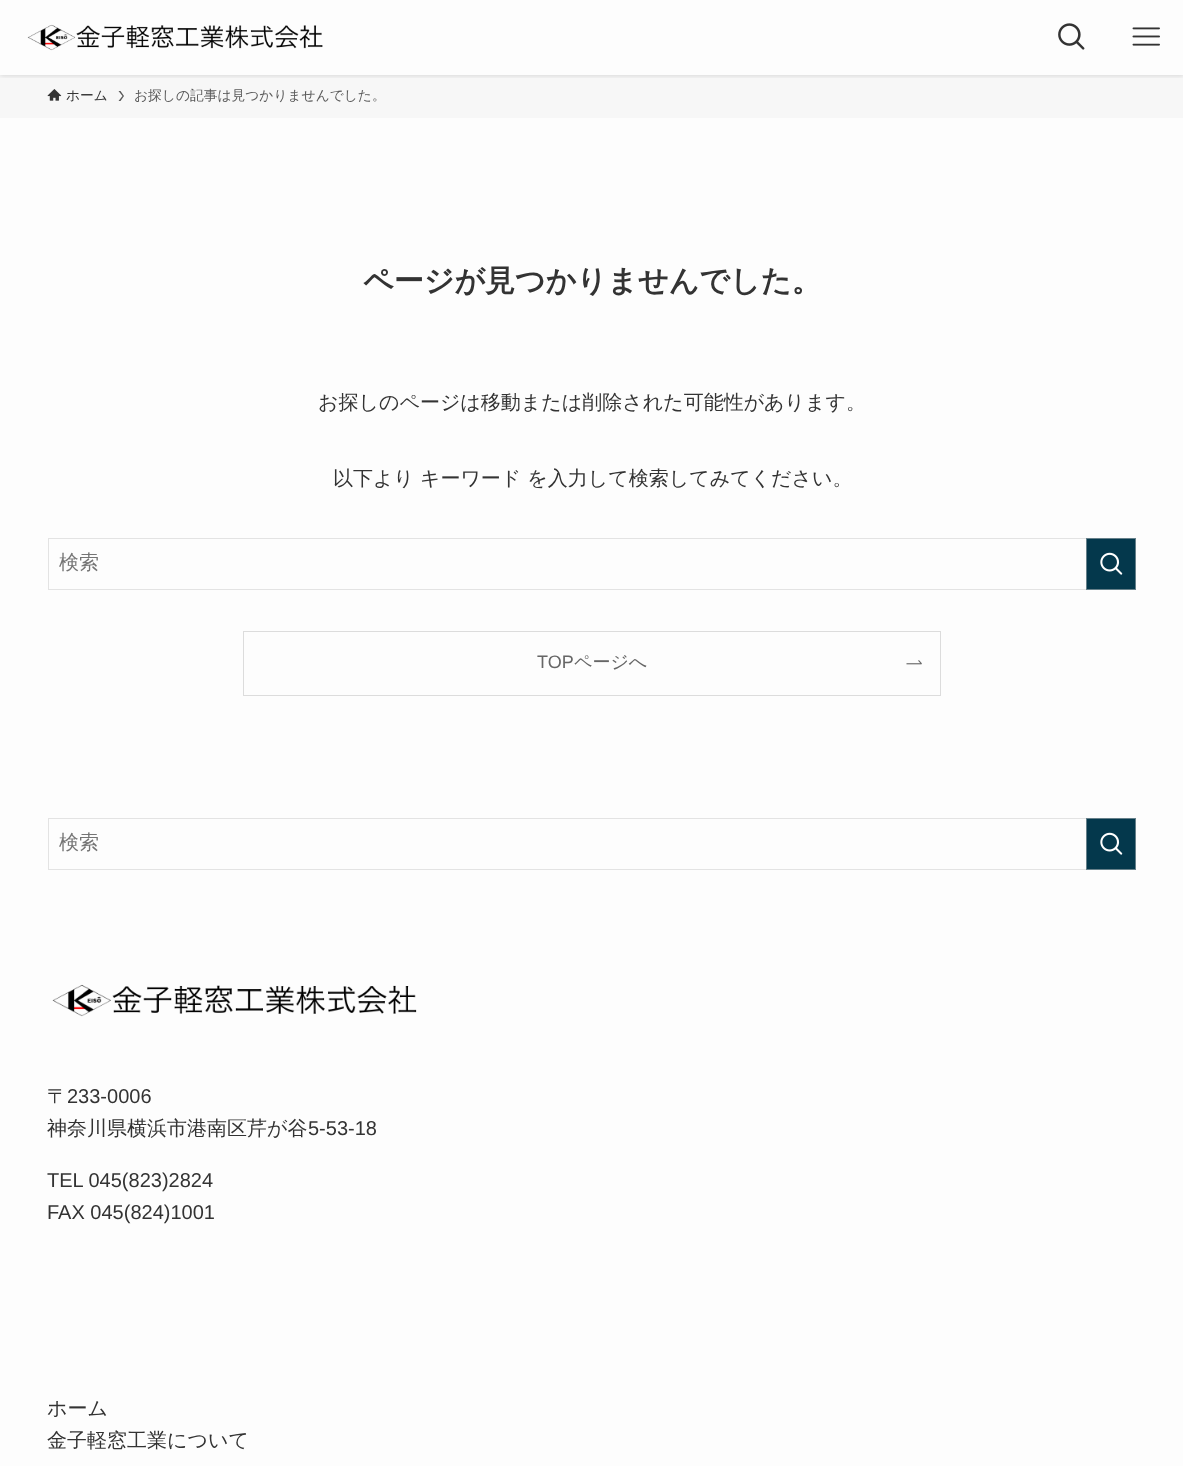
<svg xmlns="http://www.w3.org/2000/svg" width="1183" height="1466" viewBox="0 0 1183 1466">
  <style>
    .t1 { font: 500 13.75px WenQuanYi Zen Hei; fill: #333; }
    .t2 { font: 500 13.75px WenQuanYi Zen Hei; fill: #5a5a5a; }
    .t3 { font: bold 30px WenQuanYi Zen Hei; fill: #333; }
    .t4 { font: 500 20px WenQuanYi Zen Hei; fill: #333; }
    .t5 { font: 500 20px WenQuanYi Zen Hei; fill: #757575; }
    .t6 { font: 18px Liberation Sans; fill: #666; }
    .t7 { font: 500 18px WenQuanYi Zen Hei; fill: #666; }
    .t8 { font: 20px Liberation Sans; fill: #333; }
  </style>
  <defs>
    <clipPath id="clip1"><rect x="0" y="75" width="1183" height="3"/></clipPath>
  </defs>
  <rect width="100%" height="100%" fill="#fdfdfd"/>
  <rect x="0" y="75" width="1183" height="43" fill="#f7f7f7"/>
  <g clip-path="url(#clip1)">
    <rect x="0" y="1" width="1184" height="75" fill="#0000001f" filter="blur(2.5px)"/>
  </g>
  <image x="27" y="24" width="296" height="27" href="images/1.png"/>
  <image x="1058" y="23" width="27" height="27" href="images/2.png"/>
  <image x="1132" y="27" width="28" height="19" href="images/3.png"/>
  <image x="47" y="89" width="15" height="12" href="images/4.png"/>
  <text x="66" y="100" class="t1">ホーム</text>
  <path d="M120.5 91H118.5L122.5 96L118.5 101H120.5L124 96Z" fill="#5a5a5a"/>
  <text x="134" y="100" class="t2">お探しの記事は見つかりませんでした。</text>
  <text x="363" y="291" class="t3">ページが見つかりませんでした。</text>
  <text x="318" y="409" class="t4">お探しのページは移動または削除された可能性があります。</text>
  <text x="333" y="485" class="t4">以下より キーワード を入力して検索してみてください。</text>
  <rect x="48.5" y="538.5" width="1087" height="51" fill="none" stroke="#e3e3e3"/>
  <text x="59" y="569" class="t5">検索</text>
  <rect x="1086.5" y="538.5" width="49" height="51" fill="#04384c" stroke="#66808a"/>
  <image x="1100" y="552" width="23" height="23" href="images/5.png"/>
  <rect x="243.5" y="631.5" width="697" height="64" fill="none" stroke="#dcdcdc"/>
  <text x="537" y="668" class="t6">TOP</text>
  <text x="574" y="668" class="t7">ページへ</text>
  <image x="906" y="660" width="16" height="5" href="images/6.png"/>
  <rect x="48.5" y="818.5" width="1087" height="51" fill="none" stroke="#e3e3e3"/>
  <text x="59" y="849" class="t5">検索</text>
  <rect x="1086.5" y="818.5" width="49" height="51" fill="#04384c" stroke="#66808a"/>
  <image x="1100" y="832" width="23" height="23" href="images/5.png"/>
  <image x="52" y="984" width="365" height="33" href="images/7.png"/>
  <text x="47" y="1103" class="t4">〒</text>
  <text x="67" y="1103" class="t8">233-0006</text>
  <text x="47" y="1135" class="t4">神奈川県横浜市港南区芹が谷</text>
  <text x="308" y="1135" class="t8">5-53-18</text>
  <text x="47" y="1187" class="t8">TEL 045(823)2824</text>
  <text x="47" y="1219" class="t8">FAX 045(824)1001</text>
  <text x="47" y="1415" class="t4">ホーム</text>
  <text x="47" y="1447" class="t4">金子軽窓工業について</text>
</svg>
